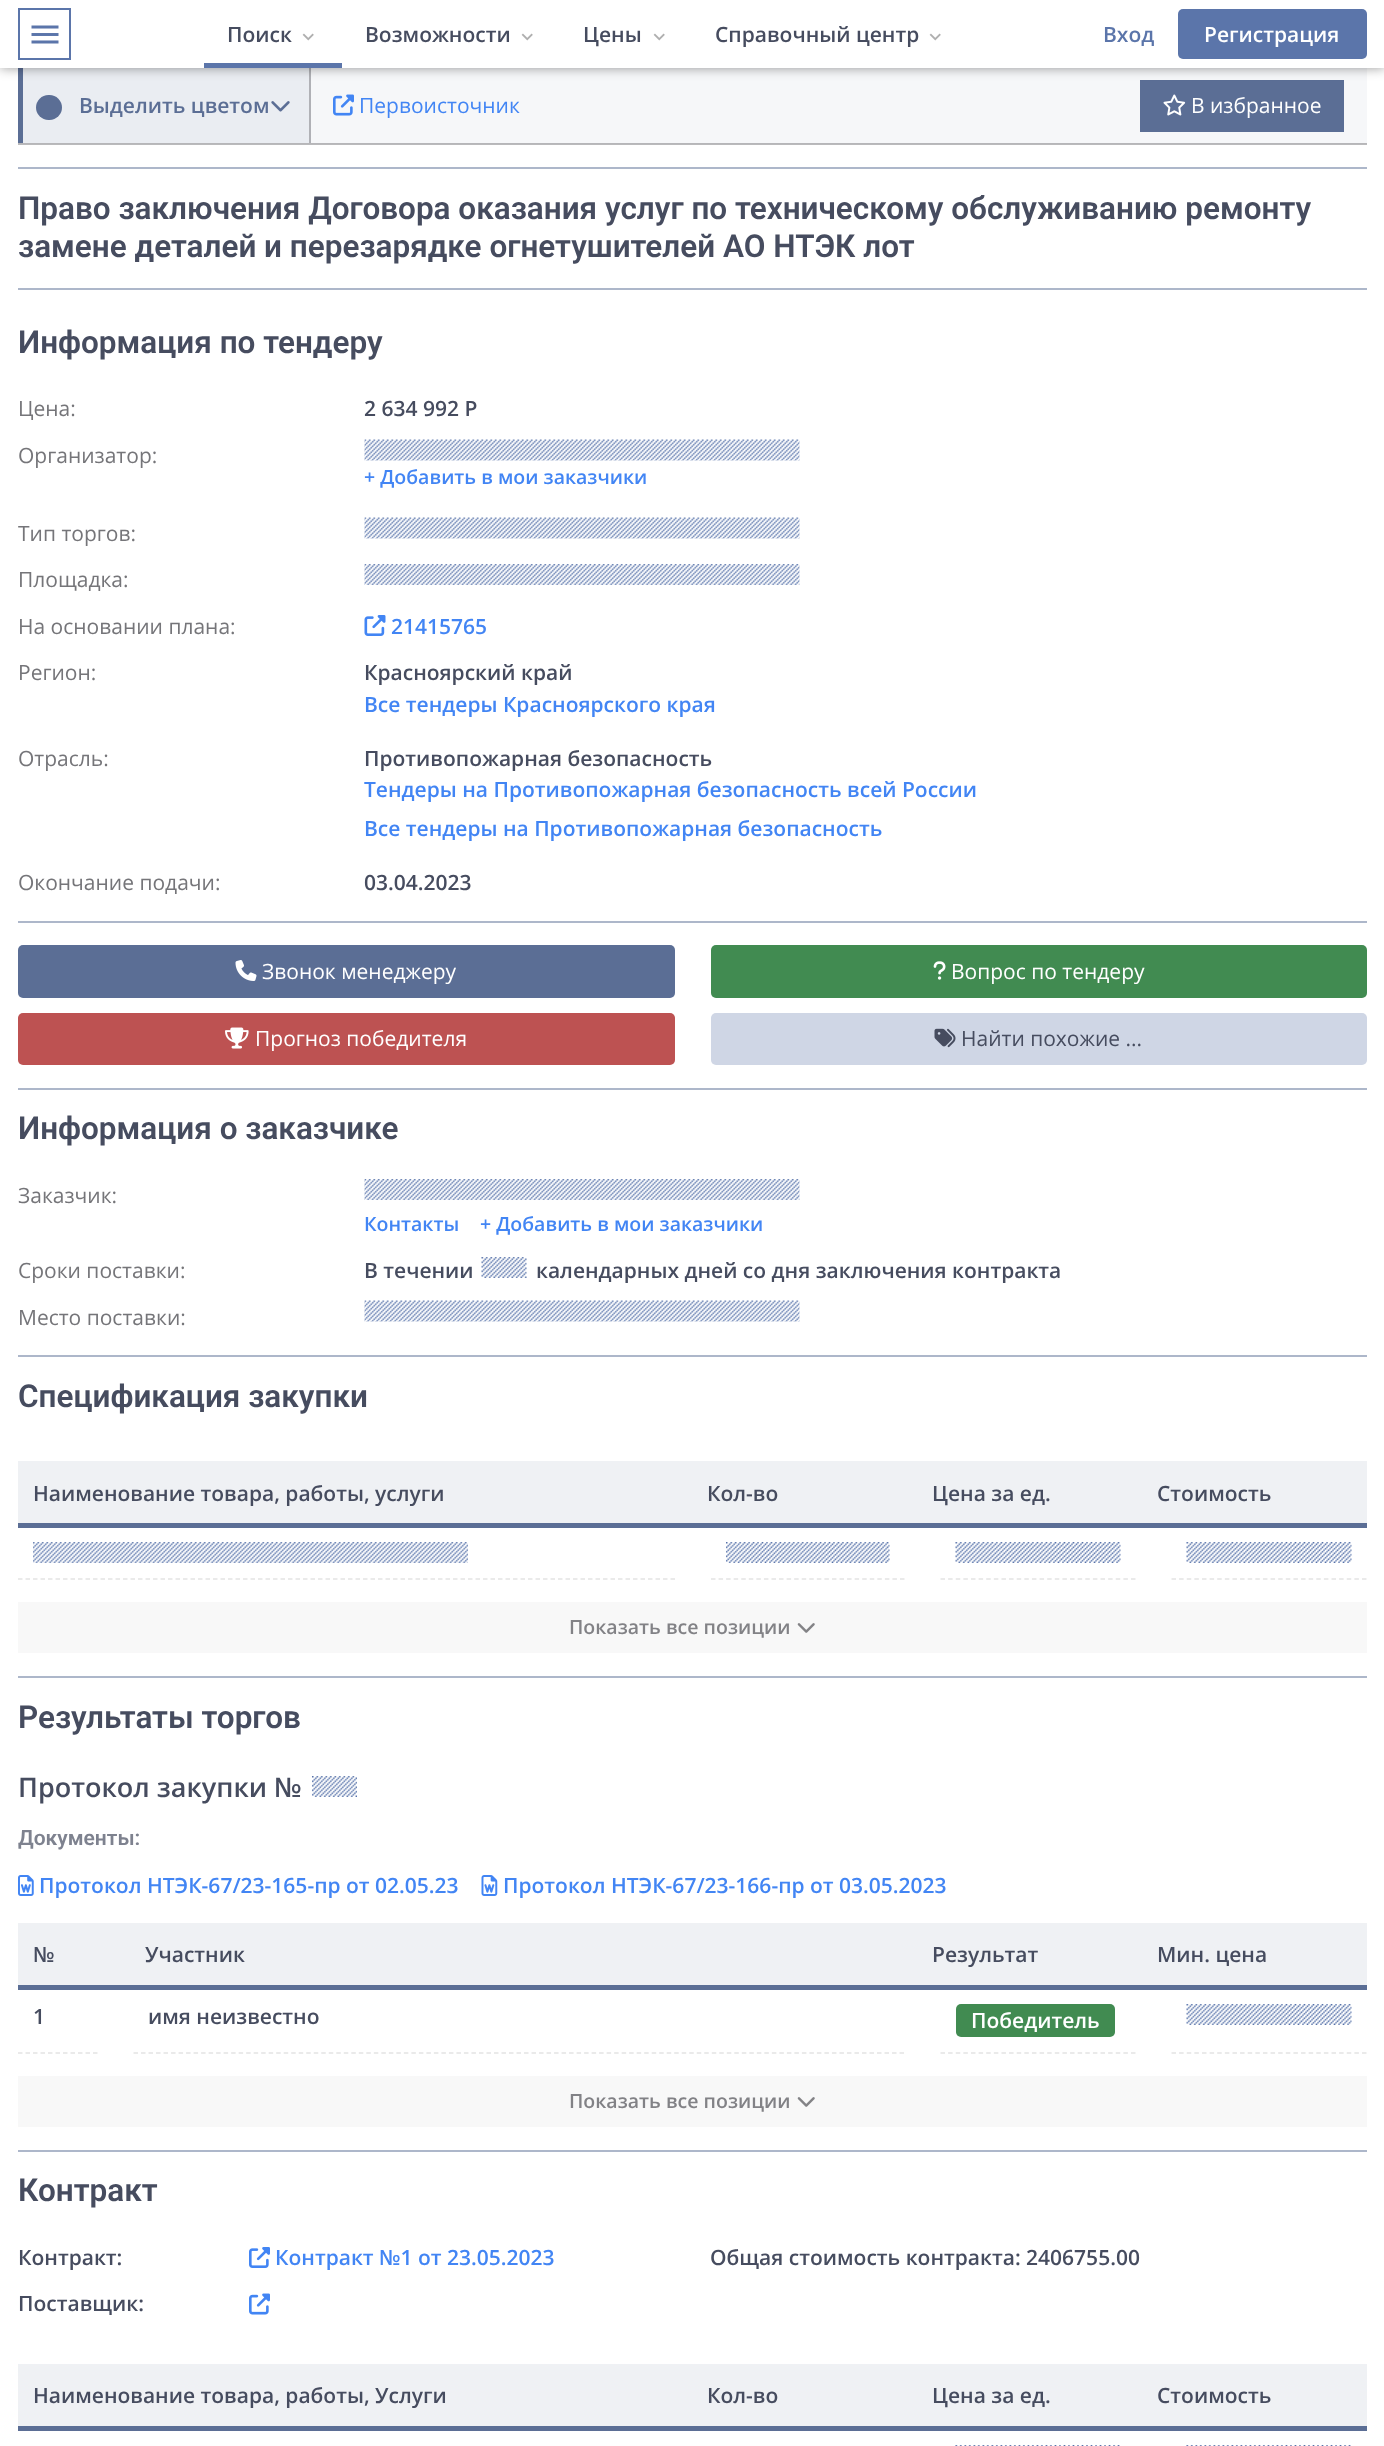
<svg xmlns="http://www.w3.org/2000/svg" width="1384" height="2446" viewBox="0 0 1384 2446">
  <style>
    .t1 { font: 600 21px Open Sans; fill: #464c5f; }
    .t2 { font: 600 21px Open Sans; fill: #5b75aa; }
    .t3 { font: 600 21px Open Sans; fill: #fff; }
    .t4 { font: 600 21px Open Sans; fill: #5b6e95; }
    .t5 { font: 21px Open Sans; fill: #4285f4; }
    .t6 { font: 21px Open Sans; fill: #fff; }
    .t7 { font: 600 31.5px Roboto; fill: #464c5f; }
    .t8 { font: 21px Open Sans; fill: #757579; }
    .t9 { font: 600 19.5px Open Sans; fill: #4285f4; }
    .t10 { font: 600 21px Open Sans; fill: #4285f4; }
    .t11 { font: 21px Open Sans; fill: #464c5f; }
    .t12 { font: 600 19.5px Open Sans; fill: #828286; }
    .t13 { font: 600 27px Open Sans; fill: #464c5f; }
    .t14 { font: 600 21px Roboto; fill: #7e828f; }
  </style>
  <rect width="100%" height="100%" fill="#fff"/>
  <rect x="18" y="144" width="1349" height="1" fill="#bababc"/>
  <rect x="311" y="68" width="1056" height="75" fill="#f6f7f9"/>
  <rect x="23" y="68" width="286" height="75" fill="#eaedf2"/>
  <rect x="309" y="68" width="2" height="75" fill="#b0b1b6"/>
  <rect x="18" y="68" width="5" height="75" fill="#5b6e95"/>
  <rect x="1140" y="80" width="204" height="52" fill="#5b6e95"/>
  <rect x="0" y="0" width="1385" height="68" fill="#00000066" filter="blur(6px)"/>
  <rect x="0" y="0" width="1384" height="68" fill="#fff"/>
  <rect x="19" y="9" width="51" height="50" fill="none" stroke="#5b75aa" stroke-width="2"/>
  <image x="31" y="25" width="28" height="19" href="images/1.png"/>
  <rect x="204" y="63" width="138" height="5" fill="#5b75aa"/>
  <text x="227" y="42" class="t1">Поиск</text>
  <image x="302" y="33" width="12" height="8" href="images/2.png"/>
  <text x="365" y="42" class="t1">Возможности</text>
  <image x="521" y="33" width="12" height="8" href="images/2.png"/>
  <text x="583" y="42" class="t1">Цены</text>
  <image x="653" y="33" width="12" height="8" href="images/2.png"/>
  <text x="715" y="42" class="t1">Справочный центр</text>
  <image x="929" y="33" width="12" height="8" href="images/2.png"/>
  <text x="1103" y="42" class="t2">Вход</text>
  <rect x="1178" y="9" width="189" height="50" rx="5" fill="#5b75aa"/>
  <text x="1204" y="42" class="t3">Регистрация</text>
  <rect x="18" y="143" width="1349" height="1" fill="#b6b6b9"/>
  <rect x="36" y="95" width="26" height="25" rx="12.5" fill="#5b6e95"/>
  <text x="79" y="113" class="t4">Выделить цветом</text>
  <image x="271" y="101" width="19" height="11" href="images/3.png"/>
  <image x="333" y="94" width="21" height="22" href="images/4.png"/>
  <text x="359" y="113" class="t5">Первоисточник</text>
  <image x="1163" y="94" width="23" height="22" href="images/5.png"/>
  <text x="1191" y="113" class="t6">В избранное</text>
  <rect x="18" y="167" width="1349" height="2" fill="#adb7ca"/>
  <rect x="18" y="288" width="1349" height="2" fill="#adb7ca"/>
  <text x="18" y="219" class="t7">Право заключения Договора оказания услуг по техническому обслуживанию ремонту</text>
  <text x="18" y="257" class="t7">замене деталей и перезарядке огнетушителей АО НТЭК лот</text>
  <rect x="18" y="921" width="1349" height="2" fill="#adb7ca"/>
  <text x="18" y="353" class="t7">Информация по тендеру</text>
  <text x="18" y="416" class="t8">Цена:</text>
  <text x="364" y="416" class="t1">2 634 992 Р</text>
  <text x="18" y="463" class="t8">Организатор:</text>
  <image x="364" y="439" width="436" height="22" href="images/6.png"/>
  <text x="364" y="484" class="t9">+ Добавить в мои заказчики</text>
  <text x="18" y="541" class="t8">Тип торгов:</text>
  <image x="364" y="517" width="436" height="22" href="images/7.png"/>
  <text x="18" y="587" class="t8">Площадка:</text>
  <image x="364" y="564" width="436" height="21" href="images/8.png"/>
  <text x="18" y="634" class="t8">На основании плана:</text>
  <image x="364" y="615" width="22" height="21" href="images/9.png"/>
  <text x="391" y="634" class="t10">21415765</text>
  <text x="18" y="680" class="t8">Регион:</text>
  <text x="364" y="680" class="t1">Красноярский край</text>
  <text x="364" y="712" class="t10">Все тендеры Красноярского края</text>
  <text x="18" y="766" class="t8">Отрасль:</text>
  <text x="364" y="766" class="t1">Противопожарная безопасность</text>
  <text x="364" y="797" class="t10">Тендеры на Противопожарная безопасность всей России</text>
  <text x="364" y="836" class="t10">Все тендеры на Противопожарная безопасность</text>
  <text x="18" y="890" class="t8">Окончание подачи:</text>
  <text x="364" y="890" class="t1">03.04.2023</text>
  <rect x="18" y="1088" width="1349" height="2" fill="#adb7ca"/>
  <rect x="18" y="945" width="657" height="53" rx="5" fill="#5b6e95"/>
  <image x="235" y="960" width="22" height="21" href="images/10.png"/>
  <text x="262" y="979" class="t6">Звонок менеджеру</text>
  <rect x="711" y="945" width="656" height="53" rx="5" fill="#418b51"/>
  <image x="933" y="961" width="13" height="19" href="images/11.png"/>
  <text x="951" y="979" class="t6">Вопрос по тендеру</text>
  <rect x="18" y="1013" width="657" height="52" rx="5" fill="#bd5252"/>
  <image x="225" y="1027" width="24" height="22" href="images/12.png"/>
  <text x="255" y="1046" class="t6">Прогноз победителя</text>
  <rect x="711" y="1013" width="656" height="52" rx="5" fill="#cfd6e5"/>
  <image x="934" y="1028" width="22" height="20" href="images/13.png"/>
  <text x="961" y="1046" class="t11">Найти похожие ...</text>
  <rect x="18" y="1355" width="1349" height="2" fill="#adb7ca"/>
  <text x="18" y="1139" class="t7">Информация о заказчике</text>
  <text x="18" y="1203" class="t8">Заказчик:</text>
  <image x="364" y="1179" width="436" height="21" href="images/8.png"/>
  <text x="364" y="1231" class="t9">Контакты</text>
  <text x="480" y="1231" class="t9">+ Добавить в мои заказчики</text>
  <text x="18" y="1278" class="t8">Сроки поставки:</text>
  <text x="364" y="1278" class="t1">В течении</text>
  <image x="481" y="1257" width="46" height="21" href="images/14.png"/>
  <text x="536" y="1278" class="t1">календарных дней со дня заключения контракта</text>
  <text x="18" y="1325" class="t8">Место поставки:</text>
  <image x="364" y="1300" width="436" height="22" href="images/7.png"/>
  <rect x="18" y="1676" width="1349" height="2" fill="#adb7ca"/>
  <text x="18" y="1407" class="t7">Спецификация закупки</text>
  <rect x="18" y="1461" width="1349" height="62" fill="#eff1f4"/>
  <rect x="18" y="1523" width="1349" height="5" fill="#5b6e95"/>
  <text x="33" y="1501" class="t1">Наименование товара, работы, услуги</text>
  <text x="707" y="1501" class="t1">Кол-во</text>
  <text x="932" y="1501" class="t1">Цена за ед.</text>
  <text x="1157" y="1501" class="t1">Стоимость</text>
  <path d="M18 1579H675" fill="none" stroke="#e3e3e4" stroke-width="1.5" stroke-dasharray="4.5 3"/>
  <image x="33" y="1542" width="435" height="21" href="images/15.png"/>
  <path d="M711 1579H904.5" fill="none" stroke="#e3e3e4" stroke-width="1.5" stroke-dasharray="4.5 3.06"/>
  <image x="726" y="1542" width="164" height="21" href="images/16.png"/>
  <path d="M940.5 1579H1135.5" fill="none" stroke="#e3e3e4" stroke-width="1.5" stroke-dasharray="4.5 3.12"/>
  <image x="955" y="1542" width="166" height="21" href="images/17.png"/>
  <path d="M1171.5 1579H1366.5" fill="none" stroke="#e3e3e4" stroke-width="1.5" stroke-dasharray="4.5 3.12"/>
  <image x="1186" y="1542" width="166" height="21" href="images/18.png"/>
  <rect x="18" y="1602" width="1349" height="51" fill="#f8f8f8"/>
  <text x="569" y="1634" class="t12">Показать все позиции</text>
  <image x="797" y="1623" width="18" height="10" href="images/19.png"/>
  <rect x="18" y="2150" width="1349" height="2" fill="#adb7ca"/>
  <text x="18" y="1728" class="t7">Результаты торгов</text>
  <text x="18" y="1797" class="t13">Протокол закупки №</text>
  <image x="312" y="1776" width="45" height="21" href="images/20.png"/>
  <text x="18" y="1845" class="t14">Документы:</text>
  <image x="18" y="1875" width="16" height="21" href="images/21.png"/>
  <text x="39" y="1893" class="t10">Протокол НТЭК-67/23-165-пр от 02.05.23</text>
  <image x="481" y="1875" width="17" height="21" href="images/22.png"/>
  <text x="503" y="1893" class="t10">Протокол НТЭК-67/23-166-пр от 03.05.2023</text>
  <rect x="18" y="1923" width="1349" height="62" fill="#eff1f4"/>
  <rect x="18" y="1985" width="1349" height="5" fill="#5b6e95"/>
  <text x="33" y="1962" class="t1">№</text>
  <text x="145" y="1962" class="t1">Участник</text>
  <text x="932" y="1962" class="t1">Результат</text>
  <text x="1157" y="1962" class="t1">Мин. цена</text>
  <path d="M18 2053H97.5" fill="none" stroke="#e3e3e4" stroke-width="1.5" stroke-dasharray="4.5 3"/>
  <text x="33" y="2024" class="t1">1</text>
  <path d="M133.5 2053H904.5" fill="none" stroke="#e3e3e4" stroke-width="1.5" stroke-dasharray="4.5 3.01"/>
  <text x="148" y="2024" class="t1">имя неизвестно</text>
  <path d="M940.5 2053H1135.5" fill="none" stroke="#e3e3e4" stroke-width="1.5" stroke-dasharray="4.5 3.12"/>
  <rect x="956" y="2004" width="159" height="33" rx="5" fill="#418b51"/>
  <text x="971" y="2028" class="t3">Победитель</text>
  <path d="M1171.5 2053H1366.5" fill="none" stroke="#e3e3e4" stroke-width="1.5" stroke-dasharray="4.5 3.12"/>
  <image x="1186" y="2004" width="166" height="21" href="images/18.png"/>
  <rect x="18" y="2076" width="1349" height="51" fill="#f8f8f8"/>
  <text x="569" y="2108" class="t12">Показать все позиции</text>
  <image x="797" y="2097" width="18" height="10" href="images/19.png"/>
  <text x="18" y="2201" class="t7">Контракт</text>
  <text x="18" y="2265" class="t1">Контракт:</text>
  <image x="249" y="2247" width="21" height="21" href="images/23.png"/>
  <text x="275" y="2265" class="t10">Контракт №1 от 23.05.2023</text>
  <text x="710" y="2265" class="t1">Общая стоимость контракта: 2406755.00</text>
  <text x="18" y="2311" class="t1">Поставщик:</text>
  <image x="249" y="2293" width="21" height="22" href="images/24.png"/>
  <rect x="18" y="2364" width="1349" height="62" fill="#eff1f4"/>
  <rect x="18" y="2426" width="1349" height="5" fill="#5b6e95"/>
  <text x="33" y="2403" class="t1">Наименование товара, работы, Услуги</text>
  <text x="707" y="2403" class="t1">Кол-во</text>
  <text x="932" y="2403" class="t1">Цена за ед.</text>
  <text x="1157" y="2403" class="t1">Стоимость</text>
  <image x="955" y="2445" width="165" height="1" href="images/25.png"/>
  <image x="1186" y="2445" width="165" height="1" href="images/26.png"/>
</svg>
